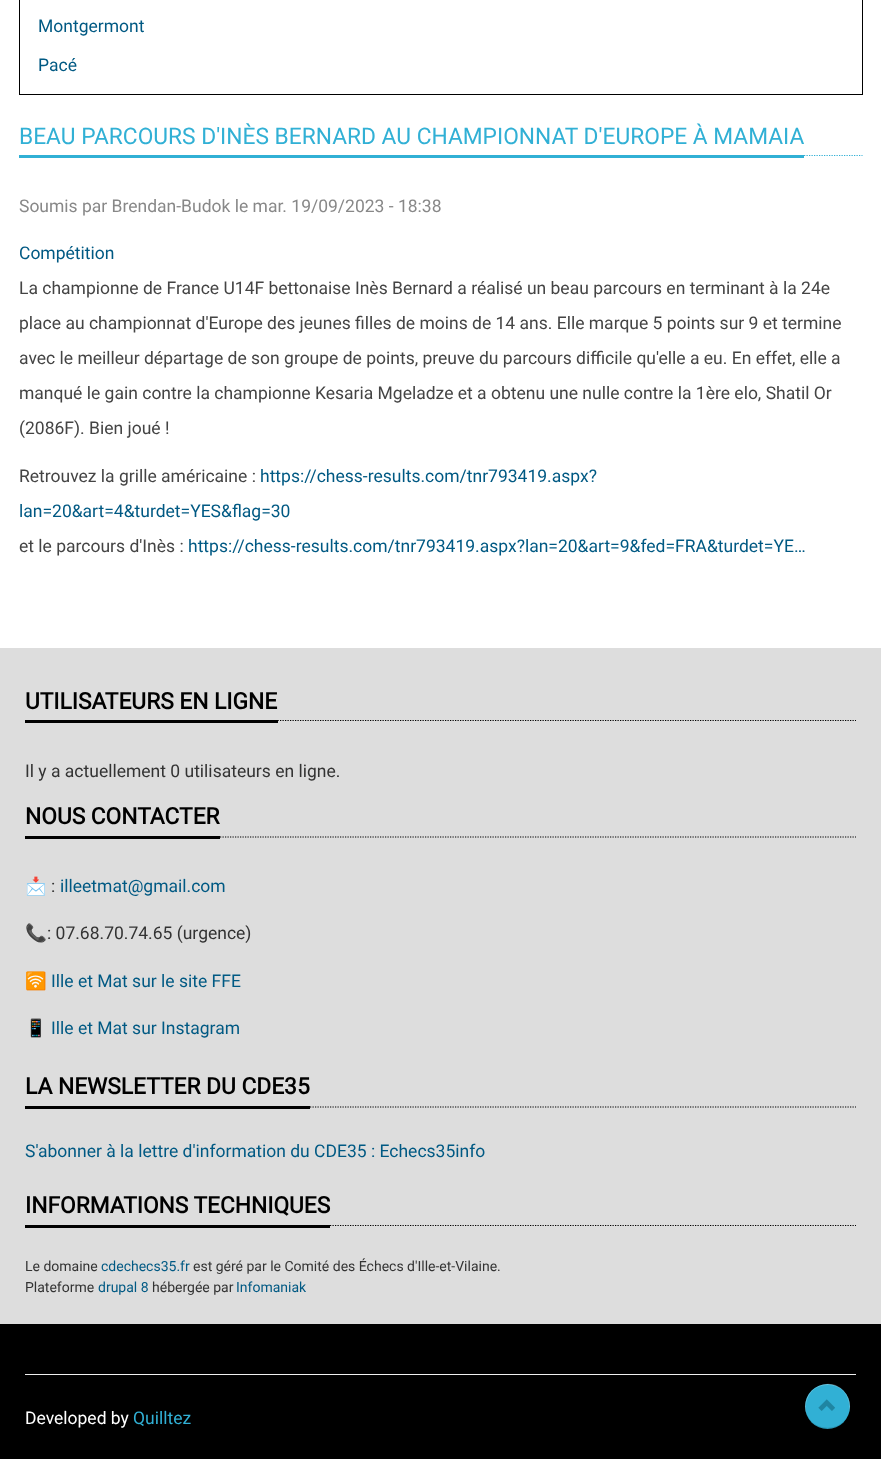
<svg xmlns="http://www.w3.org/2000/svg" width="881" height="1459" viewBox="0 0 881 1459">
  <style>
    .t1 { font: 17.5px Roboto; fill: #005983; }
    .t2 { font: 22.75px Roboto; fill: #31b0d5; }
    .t3 { font: 17.5px Roboto; fill: #888; }
    .t4 { font: 17.5px Roboto; fill: #444; }
    .t5 { font: bold 22.75px Roboto; fill: #000; }
    .t6 { font: 17.5px Roboto; fill: #333; }
    .t7 { font: 17.5px Noto Color Emoji; fill: #333; }
    .t8 { font: 17.5px Noto Color Emoji; fill: #005983; }
    .t9 { font: 14px Roboto; fill: #333; }
    .t10 { font: 14px Roboto; fill: #005983; }
    .t11 { font: 17.5px Roboto; fill: #fff; }
    .t12 { font: 17.5px Roboto; fill: #31b0d5; }
  </style>
  <rect width="100%" height="100%" fill="#fff"/>
  <rect x="19.5" y="-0.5" width="843" height="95" fill="none" stroke="#000"/>
  <text x="38" y="32" class="t1">Montgermont</text>
  <text x="38" y="71" class="t1">Pacé</text>
  <path d="M19 155.5H862.5" fill="none" stroke="#31b0d5" stroke-width="1.2" stroke-dasharray="1.25 1.25"/>
  <rect x="19" y="155" width="785" height="3" fill="#31b0d5"/>
  <text x="19" y="144" class="t2">BEAU PARCOURS D'INÈS BERNARD AU CHAMPIONNAT D'EUROPE À MAMAIA</text>
  <text x="19" y="212" class="t3">Soumis par Brendan-Budok le mar. 19/09/2023 - 18:38</text>
  <text x="19" y="259" class="t1">Compétition</text>
  <text x="19" y="294" class="t4">La championne de France U14F bettonaise Inès Bernard a réalisé un beau parcours en terminant à la 24e</text>
  <text x="19" y="329" class="t4">place au championnat d'Europe des jeunes filles de moins de 14 ans. Elle marque 5 points sur 9 et termine</text>
  <text x="19" y="364" class="t4">avec le meilleur départage de son groupe de points, preuve du parcours difficile qu'elle a eu. En effet, elle a</text>
  <text x="19" y="399" class="t4">manqué le gain contre la championne Kesaria Mgeladze et a obtenu une nulle contre la 1ère elo, Shatil Or</text>
  <text x="19" y="434" class="t4">(2086F). Bien joué !</text>
  <text x="19" y="482" class="t4">Retrouvez la grille américaine :</text>
  <text x="260" y="482" class="t1">https://chess-results.com/tnr793419.aspx?</text>
  <text x="19" y="517" class="t1">lan=20&amp;art=4&amp;turdet=YES&amp;flag=30</text>
  <text x="19" y="552" class="t4">et le parcours d'Inès :</text>
  <text x="188" y="552" class="t1">https://chess-results.com/tnr793419.aspx?lan=20&amp;art=9&amp;fed=FRA&amp;turdet=YE…</text>
  <rect x="0" y="648" width="881" height="676" fill="#ddd"/>
  <path d="M25 720.5H856" fill="none" stroke="#000" stroke-width="1.2" stroke-dasharray="1.25 1.25"/>
  <rect x="25" y="720" width="253" height="3" fill="#000"/>
  <text x="25" y="709" class="t5">UTILISATEURS EN LIGNE</text>
  <text x="25" y="777" class="t6">Il y a actuellement 0 utilisateurs en ligne.</text>
  <path d="M25 837H856" fill="none" stroke="#000" stroke-width="1.2" stroke-dasharray="1.25 1.25"/>
  <rect x="25" y="836" width="195" height="3" fill="#000"/>
  <text x="25" y="824" class="t5">NOUS CONTACTER</text>
  <text x="25" y="892" class="t7">📩</text>
  <text x="51" y="892" class="t6">:</text>
  <text x="60" y="892" class="t1">illeetmat@gmail.com</text>
  <text x="25" y="939" class="t7">📞</text>
  <text x="47" y="939" class="t6">: 07.68.70.74.65 (urgence)</text>
  <text x="25" y="987" class="t8">🛜</text>
  <text x="51" y="987" class="t1">Ille et Mat sur le site FFE</text>
  <text x="25" y="1034" class="t8">📱</text>
  <text x="51" y="1034" class="t1">Ille et Mat sur Instagram</text>
  <path d="M25 1107H856" fill="none" stroke="#000" stroke-width="1.2" stroke-dasharray="1.25 1.25"/>
  <rect x="25" y="1106" width="285" height="3" fill="#000"/>
  <text x="25" y="1094" class="t5">LA NEWSLETTER DU CDE35</text>
  <text x="25" y="1157" class="t1">S'abonner à la lettre d'information du CDE35 : Echecs35info</text>
  <path d="M25 1225.5H856" fill="none" stroke="#000" stroke-width="1.2" stroke-dasharray="1.25 1.25"/>
  <rect x="25" y="1225" width="305" height="3" fill="#000"/>
  <text x="25" y="1213" class="t5">INFORMATIONS TECHNIQUES</text>
  <text x="25" y="1271" class="t9">Le domaine</text>
  <text x="101" y="1271" class="t10">cdechecs35.fr</text>
  <text x="193" y="1271" class="t9">est géré par le Comité des Échecs d'Ille-et-Vilaine.</text>
  <text x="25" y="1292" class="t9">Plateforme</text>
  <text x="98" y="1292" class="t10">drupal 8</text>
  <text x="152" y="1292" class="t9">hébergée par</text>
  <text x="236" y="1292" class="t10">Infomaniak</text>
  <rect x="0" y="1324" width="881" height="135" fill="#000"/>
  <rect x="25" y="1374" width="831" height="1" fill="#eee"/>
  <text x="25" y="1424" class="t11">Developed by</text>
  <text x="133" y="1424" class="t12">Quilltez</text>
  <circle cx="827.5" cy="1406.5" r="22.5" fill="#31b0d5"/>
  <path d="M850 1402C853 1438 799 1435 806 1400C799 1424 832 1441 846 1419C849 1414 851 1408 850 1402Z" fill="#00000026"/>
  <path d="M828 1385C844 1385 851 1399 849 1412C851 1406 850 1399 846 1394C831 1371 797 1391 807 1415C803 1402 810 1385 828 1385Z" fill="#ffffff40"/>
  <image x="818" y="1399" width="17" height="12" href="images/1.png"/>
</svg>
